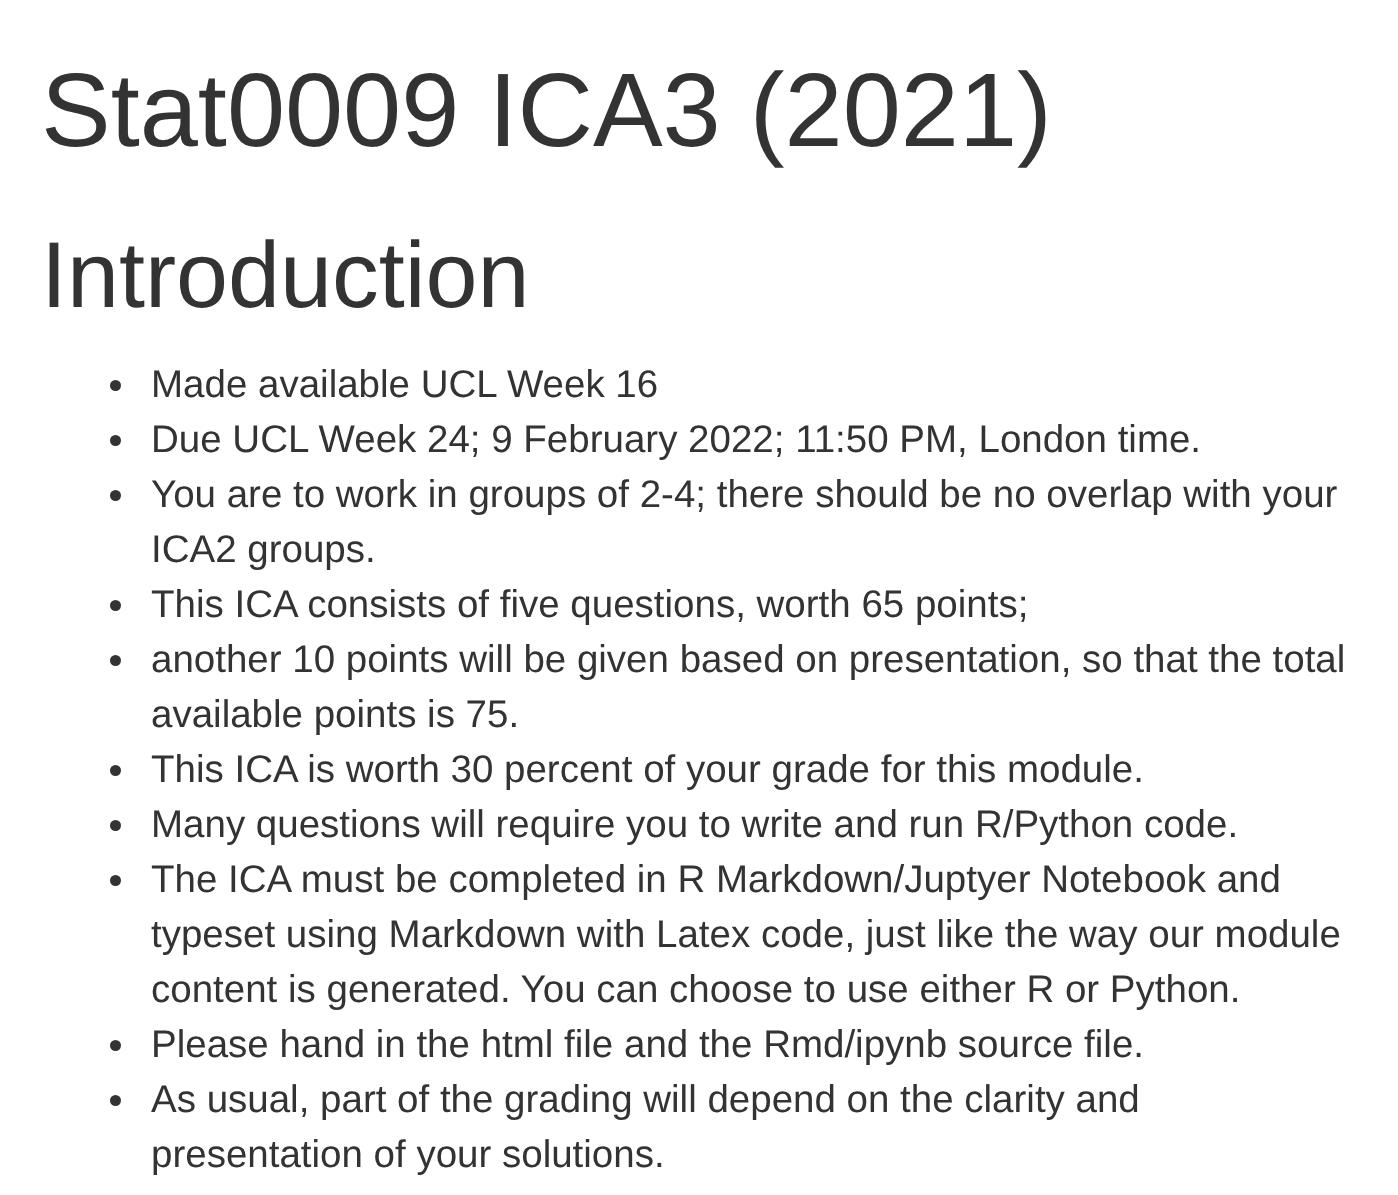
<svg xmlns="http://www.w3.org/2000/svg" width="1398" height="1195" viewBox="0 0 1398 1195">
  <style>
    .t1 { font: 104.5px Liberation Sans; fill: #333; }
    .t2 { font: 93.5px Liberation Sans; fill: #333; }
    .t3 { font: 38.5px Liberation Sans; fill: #333; }
  </style>
  <rect width="100%" height="100%" fill="#fff"/>
  <text x="41" y="146" class="t1">Stat0009 ICA3 (2021)</text>
  <text x="41" y="307" class="t2">Introduction</text>
  <circle cx="115.5" cy="385.5" r="5.5" fill="#333"/>
  <text x="151" y="397" class="t3">Made available UCL Week 16</text>
  <circle cx="115.5" cy="440.5" r="5.5" fill="#333"/>
  <text x="151" y="452" class="t3">Due UCL Week 24; 9 February 2022; 11:50 PM, London time.</text>
  <circle cx="115.5" cy="495.5" r="5.5" fill="#333"/>
  <text x="151" y="507" class="t3">You are to work in groups of 2-4; there should be no overlap with your</text>
  <text x="151" y="562" class="t3">ICA2 groups.</text>
  <circle cx="115.5" cy="605.5" r="5.5" fill="#333"/>
  <text x="151" y="617" class="t3">This ICA consists of five questions, worth 65 points;</text>
  <circle cx="115.5" cy="660.5" r="5.5" fill="#333"/>
  <text x="151" y="672" class="t3">another 10 points will be given based on presentation, so that the total</text>
  <text x="151" y="727" class="t3">available points is 75.</text>
  <circle cx="115.5" cy="770.5" r="5.5" fill="#333"/>
  <text x="151" y="782" class="t3">This ICA is worth 30 percent of your grade for this module.</text>
  <circle cx="115.5" cy="825.5" r="5.5" fill="#333"/>
  <text x="151" y="837" class="t3">Many questions will require you to write and run R/Python code.</text>
  <circle cx="115.5" cy="880.5" r="5.5" fill="#333"/>
  <text x="151" y="892" class="t3">The ICA must be completed in R Markdown/Juptyer Notebook and</text>
  <text x="151" y="947" class="t3">typeset using Markdown with Latex code, just like the way our module</text>
  <text x="151" y="1002" class="t3">content is generated. You can choose to use either R or Python.</text>
  <circle cx="115.5" cy="1045.5" r="5.5" fill="#333"/>
  <text x="151" y="1057" class="t3">Please hand in the html file and the Rmd/ipynb source file.</text>
  <circle cx="115.5" cy="1100.5" r="5.5" fill="#333"/>
  <text x="151" y="1112" class="t3">As usual, part of the grading will depend on the clarity and</text>
  <text x="151" y="1167" class="t3">presentation of your solutions.</text>
</svg>
